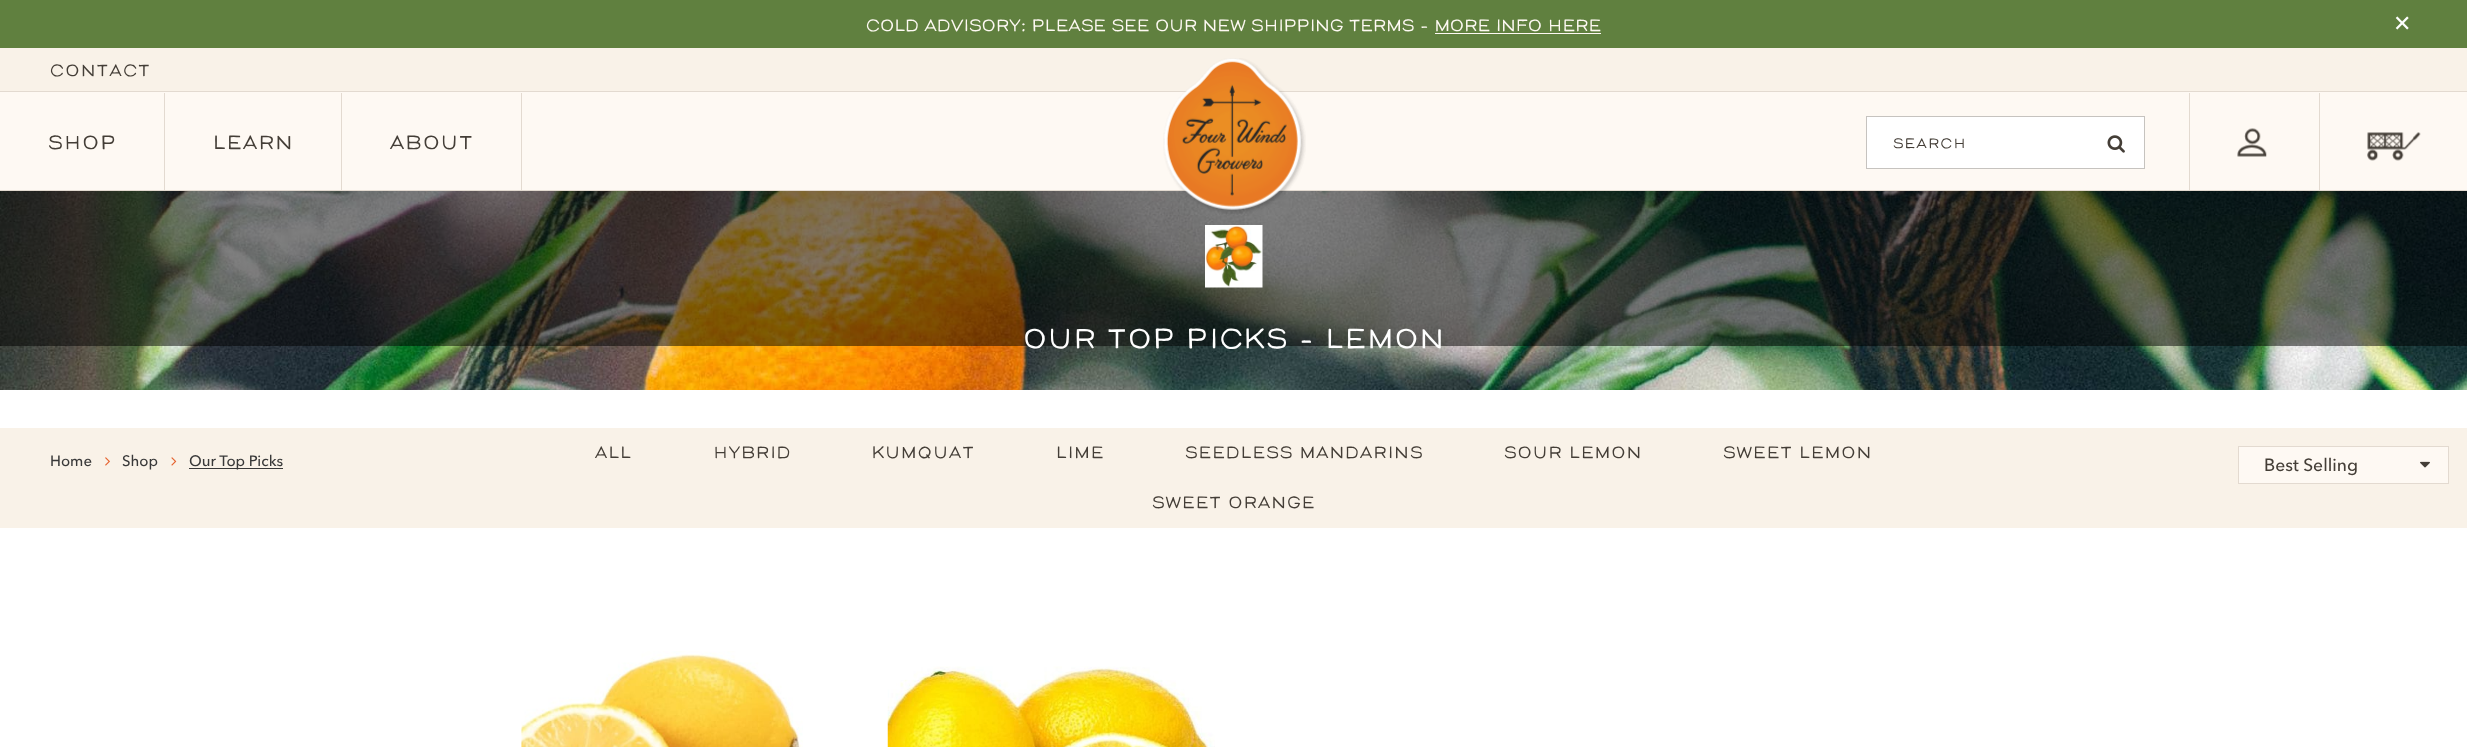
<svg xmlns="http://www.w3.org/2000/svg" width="2467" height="747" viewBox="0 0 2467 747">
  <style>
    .t1 { font: bold 15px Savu; fill: #fef9f3; }
    .t2 { font: 22px DejaVu Sans; fill: #fff; }
    .t3 { font: bold 15px Savu; letter-spacing: 1.25px; fill: #443e37; }
    .t4 { font: bold 17.5px Savu; letter-spacing: 1.25px; fill: #443e37; }
    .t5 { font: bold 12.5px Savu; letter-spacing: 1.25px; fill: #443e37; }
    .t6 { font: bold 25px Savu; letter-spacing: 1.25px; fill: #fff; }
    .t7 { font: 15px avenir; fill: #393939; }
    .t8 { font: bold 15px Savu; letter-spacing: 1px; fill: #443e37; }
    .t9 { font: 17.5px avenir; fill: #443e37; }
  </style>
  <rect width="100%" height="100%" fill="#fff"/>
  <rect x="0" y="0" width="2467" height="48" fill="#60803f"/>
  <text x="866" y="31" class="t1">COLD ADVISORY: PLEASE SEE OUR NEW SHIPPING TERMS - MORE INFO HERE</text>
  <rect x="1435" y="33" width="166" height="1" fill="#fef9f3"/>
  <text x="2393" y="31" class="t2">✕</text>
  <rect x="0" y="48" width="2467" height="43" fill="#f9f2e8"/>
  <text x="50" y="76" class="t3">CONTACT</text>
  <rect x="0" y="92" width="2467" height="98" fill="#fef9f3"/>
  <rect x="0" y="91" width="2467" height="1" fill="#e3dad0"/>
  <rect x="0" y="190" width="2467" height="1" fill="#e3dad0"/>
  <image x="0" y="191" width="2467" height="199" href="images/5.png"/>
  <rect x="0" y="191" width="2467" height="155" fill="#00000080"/>
  <image x="1163" y="58" width="143" height="156" href="images/1.png"/>
  <rect x="164" y="93" width="1" height="98" fill="#e3dad0"/>
  <text x="48" y="149" class="t4">Shop</text>
  <rect x="341" y="93" width="1" height="98" fill="#e3dad0"/>
  <text x="213" y="149" class="t4">Learn</text>
  <rect x="521" y="93" width="1" height="98" fill="#e3dad0"/>
  <text x="390" y="149" class="t4">About</text>
  <rect x="1866.5" y="116.5" width="278" height="52" fill="#fff" stroke="#c6c3bf"/>
  <text x="1893" y="148" class="t5">search</text>
  <image x="2107" y="135" width="18" height="18" href="images/2.png"/>
  <rect x="2189" y="93" width="1" height="98" fill="#e3dad0"/>
  <image x="2237" y="128" width="30" height="29" href="images/3.png"/>
  <rect x="2319" y="93" width="1" height="98" fill="#e3dad0"/>
  <image x="2367" y="132" width="54" height="29" href="images/4.png"/>
  <image x="1205" y="225" width="58" height="63" href="images/6.png"/>
  <text x="1023" y="348" class="t6">Our Top Picks - Lemon</text>
  <rect x="0" y="428" width="2467" height="100" fill="#f9f2e8"/>
  <text x="50" y="466" class="t7">Home</text>
  <image x="105" y="457" width="5" height="9" href="images/7.png"/>
  <text x="122" y="466" class="t7">Shop</text>
  <image x="171" y="457" width="6" height="9" href="images/8.png"/>
  <rect x="189" y="468" width="94" height="1" fill="#393939"/>
  <text x="189" y="466" class="t7">Our Top Picks</text>
  <text x="595" y="458" class="t8">All</text>
  <text x="713" y="458" class="t8">Hybrid</text>
  <text x="872" y="458" class="t8">Kumquat</text>
  <text x="1056" y="458" class="t8">Lime</text>
  <text x="1185" y="458" class="t8">Seedless Mandarins</text>
  <text x="1504" y="458" class="t8">Sour Lemon</text>
  <text x="1723" y="458" class="t8">Sweet Lemon</text>
  <text x="1152" y="508" class="t8">Sweet Orange</text>
  <rect x="2238.5" y="446.5" width="210" height="37" fill="#fef9f3" stroke="#e3dad0"/>
  <text x="2264" y="471" class="t9">Best Selling</text>
  <image x="2420" y="461" width="10" height="7" href="images/9.png"/>
  <image x="521" y="651" width="282" height="96" href="images/10.png"/>
  <image x="887" y="666" width="328" height="81" href="images/11.png"/>
</svg>
